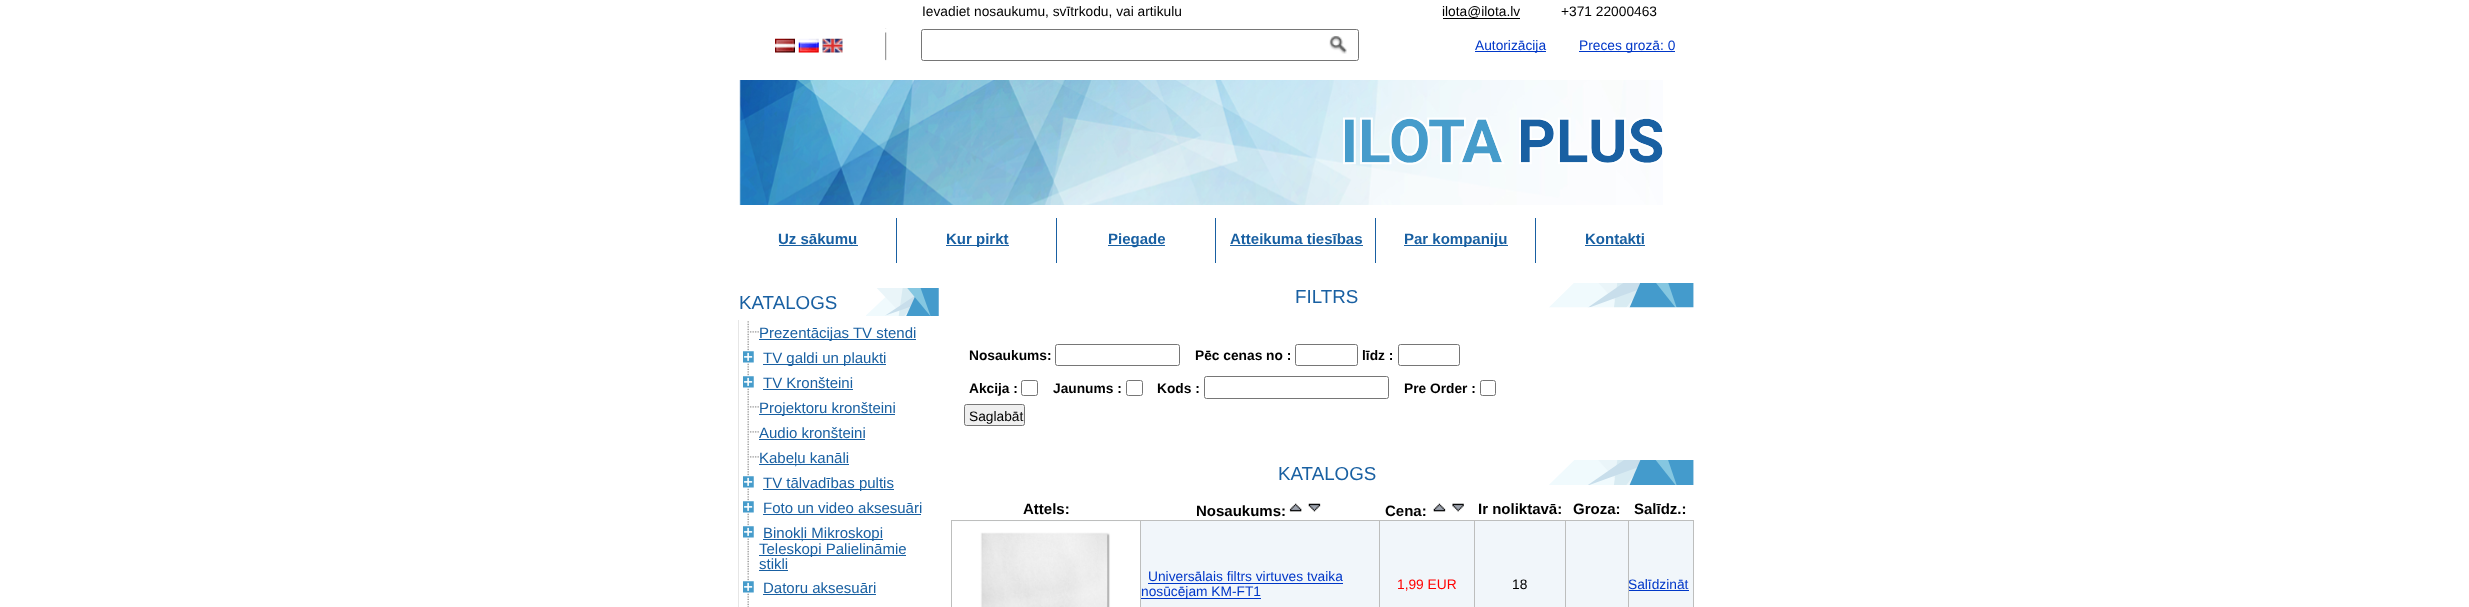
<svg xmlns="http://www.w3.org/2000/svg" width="2469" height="607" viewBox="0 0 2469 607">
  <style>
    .t1 { font: 13.75px Liberation Sans; fill: #000; }
    .t2 { font: 13.75px Liberation Sans; fill: #0037c8; }
    .t3 { font: bold 15px Liberation Sans; fill: #1960a2; }
    .t4 { font: 18.75px Liberation Sans; fill: #1960a2; }
    .t5 { font: 15px Liberation Sans; fill: #1960a2; }
    .t6 { font: bold 13.75px Liberation Sans; fill: #000; }
    .t7 { font: bold 15px Liberation Sans; fill: #000; }
    .t8 { font: 13.75px Liberation Sans; fill: #f00; }
  </style>
  <rect width="100%" height="100%" fill="#fff"/>
  <image x="775" y="38" width="20" height="15" href="images/1.png"/>
  <image x="798" y="38" width="21" height="15" href="images/2.png"/>
  <image x="822" y="38" width="21" height="15" href="images/3.png"/>
  <image x="885" y="28" width="2" height="33" href="images/4.png"/>
  <text x="922" y="16" class="t1">Ievadiet nosaukumu, svītrkodu, vai artikulu</text>
  <rect x="921.5" y="29.5" width="437" height="31" rx="2" fill="none" stroke="#767676"/>
  <image x="1329" y="36" width="18" height="18" href="images/5.png"/>
  <text x="1442" y="16" class="t1">ilota@ilota.lv</text>
  <rect x="1443" y="18" width="77" height="1" fill="#000"/>
  <rect x="1475" y="51" width="71" height="1" fill="#0037c8"/>
  <text x="1475" y="50" class="t2">Autorizācija</text>
  <text x="1561" y="16" class="t1">+371 22000463</text>
  <rect x="1579" y="51" width="96" height="1" fill="#0037c8"/>
  <text x="1579" y="50" class="t2">Preces grozā: 0</text>
  <image x="739" y="80" width="924" height="125" href="images/6.png"/>
  <text x="778" y="244" class="t3">Uz sākumu</text>
  <rect x="779" y="245" width="79" height="1" fill="#1960a2"/>
  <rect x="896" y="218" width="1" height="45" fill="#1960a2"/>
  <rect x="946" y="245" width="63" height="1" fill="#1960a2"/>
  <text x="946" y="244" class="t3">Kur pirkt</text>
  <rect x="1056" y="218" width="1" height="45" fill="#1960a2"/>
  <rect x="1108" y="245" width="57" height="1" fill="#1960a2"/>
  <text x="1108" y="244" class="t3">Piegade</text>
  <rect x="1215" y="218" width="1" height="45" fill="#1960a2"/>
  <text x="1230" y="244" class="t3">Atteikuma tiesības</text>
  <rect x="1230" y="245" width="133" height="1" fill="#1960a2"/>
  <rect x="1375" y="218" width="1" height="45" fill="#1960a2"/>
  <rect x="1404" y="245" width="104" height="1" fill="#1960a2"/>
  <text x="1404" y="244" class="t3">Par kompaniju</text>
  <rect x="1535" y="218" width="1" height="45" fill="#1960a2"/>
  <text x="1585" y="244" class="t3">Kontakti</text>
  <rect x="1585" y="245" width="60" height="1" fill="#1960a2"/>
  <image x="866" y="288" width="73" height="28" href="images/7.png"/>
  <text x="739" y="309" class="t4">KATALOGS</text>
  <image x="738" y="320" width="1" height="287" href="images/8.png"/>
  <image x="747" y="321" width="12" height="24" href="images/9.png"/>
  <rect x="759" y="339" width="157" height="1" fill="#1960a2"/>
  <text x="759" y="338" class="t5">Prezentācijas TV stendi</text>
  <image x="747" y="346" width="2" height="24" href="images/10.png"/>
  <image x="743" y="351" width="11" height="12" href="images/11.png"/>
  <rect x="763" y="364" width="123" height="1" fill="#1960a2"/>
  <text x="763" y="363" class="t5">TV galdi un plaukti</text>
  <image x="747" y="371" width="2" height="24" href="images/10.png"/>
  <image x="743" y="376" width="11" height="12" href="images/11.png"/>
  <text x="763" y="388" class="t5">TV Kronšteini</text>
  <rect x="763" y="389" width="90" height="1" fill="#1960a2"/>
  <image x="747" y="396" width="12" height="24" href="images/9.png"/>
  <rect x="759" y="414" width="136" height="1" fill="#1960a2"/>
  <text x="759" y="413" class="t5">Projektoru kronšteini</text>
  <image x="747" y="421" width="12" height="24" href="images/9.png"/>
  <text x="759" y="438" class="t5">Audio kronšteini</text>
  <rect x="759" y="439" width="106" height="1" fill="#1960a2"/>
  <image x="747" y="446" width="12" height="24" href="images/9.png"/>
  <rect x="759" y="464" width="90" height="1" fill="#1960a2"/>
  <text x="759" y="463" class="t5">Kabeļu kanāli</text>
  <image x="747" y="471" width="2" height="24" href="images/10.png"/>
  <image x="743" y="476" width="11" height="12" href="images/11.png"/>
  <rect x="763" y="489" width="131" height="1" fill="#1960a2"/>
  <text x="763" y="488" class="t5">TV tālvadības pultis</text>
  <image x="747" y="496" width="2" height="24" href="images/10.png"/>
  <image x="743" y="501" width="11" height="12" href="images/11.png"/>
  <text x="763" y="513" class="t5">Foto un video aksesuāri</text>
  <rect x="763" y="514" width="158" height="1" fill="#1960a2"/>
  <image x="747" y="521" width="2" height="54" href="images/12.png"/>
  <image x="743" y="526" width="11" height="12" href="images/11.png"/>
  <rect x="763" y="539" width="120" height="1" fill="#1960a2"/>
  <text x="763" y="538" class="t5">Binokļi Mikroskopi</text>
  <rect x="759" y="555" width="147" height="1" fill="#1960a2"/>
  <text x="759" y="554" class="t5">Teleskopi Palielināmie</text>
  <text x="759" y="569" class="t5">stikli</text>
  <rect x="759" y="570" width="29" height="1" fill="#1960a2"/>
  <image x="747" y="576" width="2" height="24" href="images/13.png"/>
  <image x="743" y="581" width="11" height="12" href="images/11.png"/>
  <text x="763" y="593" class="t5">Datoru aksesuāri</text>
  <rect x="763" y="594" width="113" height="1" fill="#1960a2"/>
  <image x="747" y="601" width="2" height="6" href="images/14.png"/>
  <image x="1549" y="283" width="145" height="25" href="images/15.png"/>
  <text x="1295" y="303" class="t4">FILTRS</text>
  <text x="969" y="360" class="t6">Nosaukums:</text>
  <rect x="1055.5" y="344.5" width="124" height="21" rx="2" fill="none" stroke="#767676"/>
  <text x="1195" y="360" class="t6">Pēc cenas no :</text>
  <rect x="1295.5" y="344.5" width="62" height="21" rx="2" fill="none" stroke="#767676"/>
  <text x="1362" y="360" class="t6">līdz :</text>
  <rect x="1398.5" y="344.5" width="61" height="21" rx="2" fill="none" stroke="#767676"/>
  <text x="969" y="393" class="t6">Akcija :</text>
  <rect x="1021.5" y="380.5" width="16" height="15" rx="2" fill="none" stroke="#767676"/>
  <text x="1053" y="393" class="t6">Jaunums :</text>
  <rect x="1126.5" y="380.5" width="16" height="15" rx="2" fill="none" stroke="#767676"/>
  <text x="1157" y="393" class="t6">Kods :</text>
  <rect x="1204.5" y="376.5" width="184" height="22" rx="2" fill="none" stroke="#767676"/>
  <text x="1404" y="393" class="t6">Pre Order :</text>
  <rect x="1480.5" y="380.5" width="15" height="15" rx="2" fill="none" stroke="#767676"/>
  <rect x="964.5" y="404.5" width="60" height="21" rx="2" fill="#efefef" stroke="#767676"/>
  <text x="969" y="421" class="t1">Saglabāt</text>
  <image x="1549" y="460" width="145" height="25" href="images/16.png"/>
  <text x="1278" y="480" class="t4">KATALOGS</text>
  <text x="1023" y="514" class="t7">Attels:</text>
  <text x="1196" y="516" class="t7">Nosaukums:</text>
  <image x="1289" y="503" width="13" height="9" href="images/17.png"/>
  <image x="1308" y="503" width="13" height="9" href="images/18.png"/>
  <text x="1385" y="516" class="t7">Cena:</text>
  <image x="1433" y="503" width="13" height="9" href="images/19.png"/>
  <image x="1452" y="503" width="12" height="9" href="images/20.png"/>
  <text x="1478" y="514" class="t7">Ir noliktavā:</text>
  <text x="1573" y="514" class="t7">Groza:</text>
  <text x="1634" y="514" class="t7">Salīdz.:</text>
  <rect x="953" y="521" width="740" height="86" fill="#f1f6fa"/>
  <rect x="1628" y="520" width="66" height="1" fill="#bdbebd"/>
  <rect x="1628" y="520" width="1" height="87" fill="#bdbebd"/>
  <rect x="1565" y="520" width="64" height="1" fill="#bdbebd"/>
  <rect x="1565" y="520" width="1" height="87" fill="#bdbebd"/>
  <rect x="1474" y="520" width="92" height="1" fill="#bdbebd"/>
  <rect x="1474" y="520" width="1" height="87" fill="#bdbebd"/>
  <rect x="1379" y="520" width="96" height="1" fill="#bdbebd"/>
  <rect x="1379" y="520" width="1" height="87" fill="#bdbebd"/>
  <rect x="1140" y="520" width="240" height="1" fill="#bdbebd"/>
  <rect x="1140" y="520" width="1" height="87" fill="#bdbebd"/>
  <rect x="951" y="520" width="190" height="1" fill="#bdbebd"/>
  <rect x="951" y="520" width="1" height="87" fill="#bdbebd"/>
  <image x="953" y="521" width="187" height="86" href="images/21.png"/>
  <text x="1148" y="581" class="t2">Universālais filtrs virtuves tvaika</text>
  <rect x="1148" y="583" width="195" height="1" fill="#0037c8"/>
  <rect x="1141" y="598" width="120" height="1" fill="#0037c8"/>
  <text x="1141" y="596" class="t2">nosūcējam KM-FT1</text>
  <text x="1397" y="589" class="t8">1,99 EUR</text>
  <text x="1512" y="589" class="t1">18</text>
  <rect x="1693" y="520" width="1" height="87" fill="#bdbebd"/>
  <text x="1628" y="589" class="t2">Salīdzināt</text>
  <rect x="1629" y="590" width="60" height="1" fill="#0037c8"/>
</svg>
